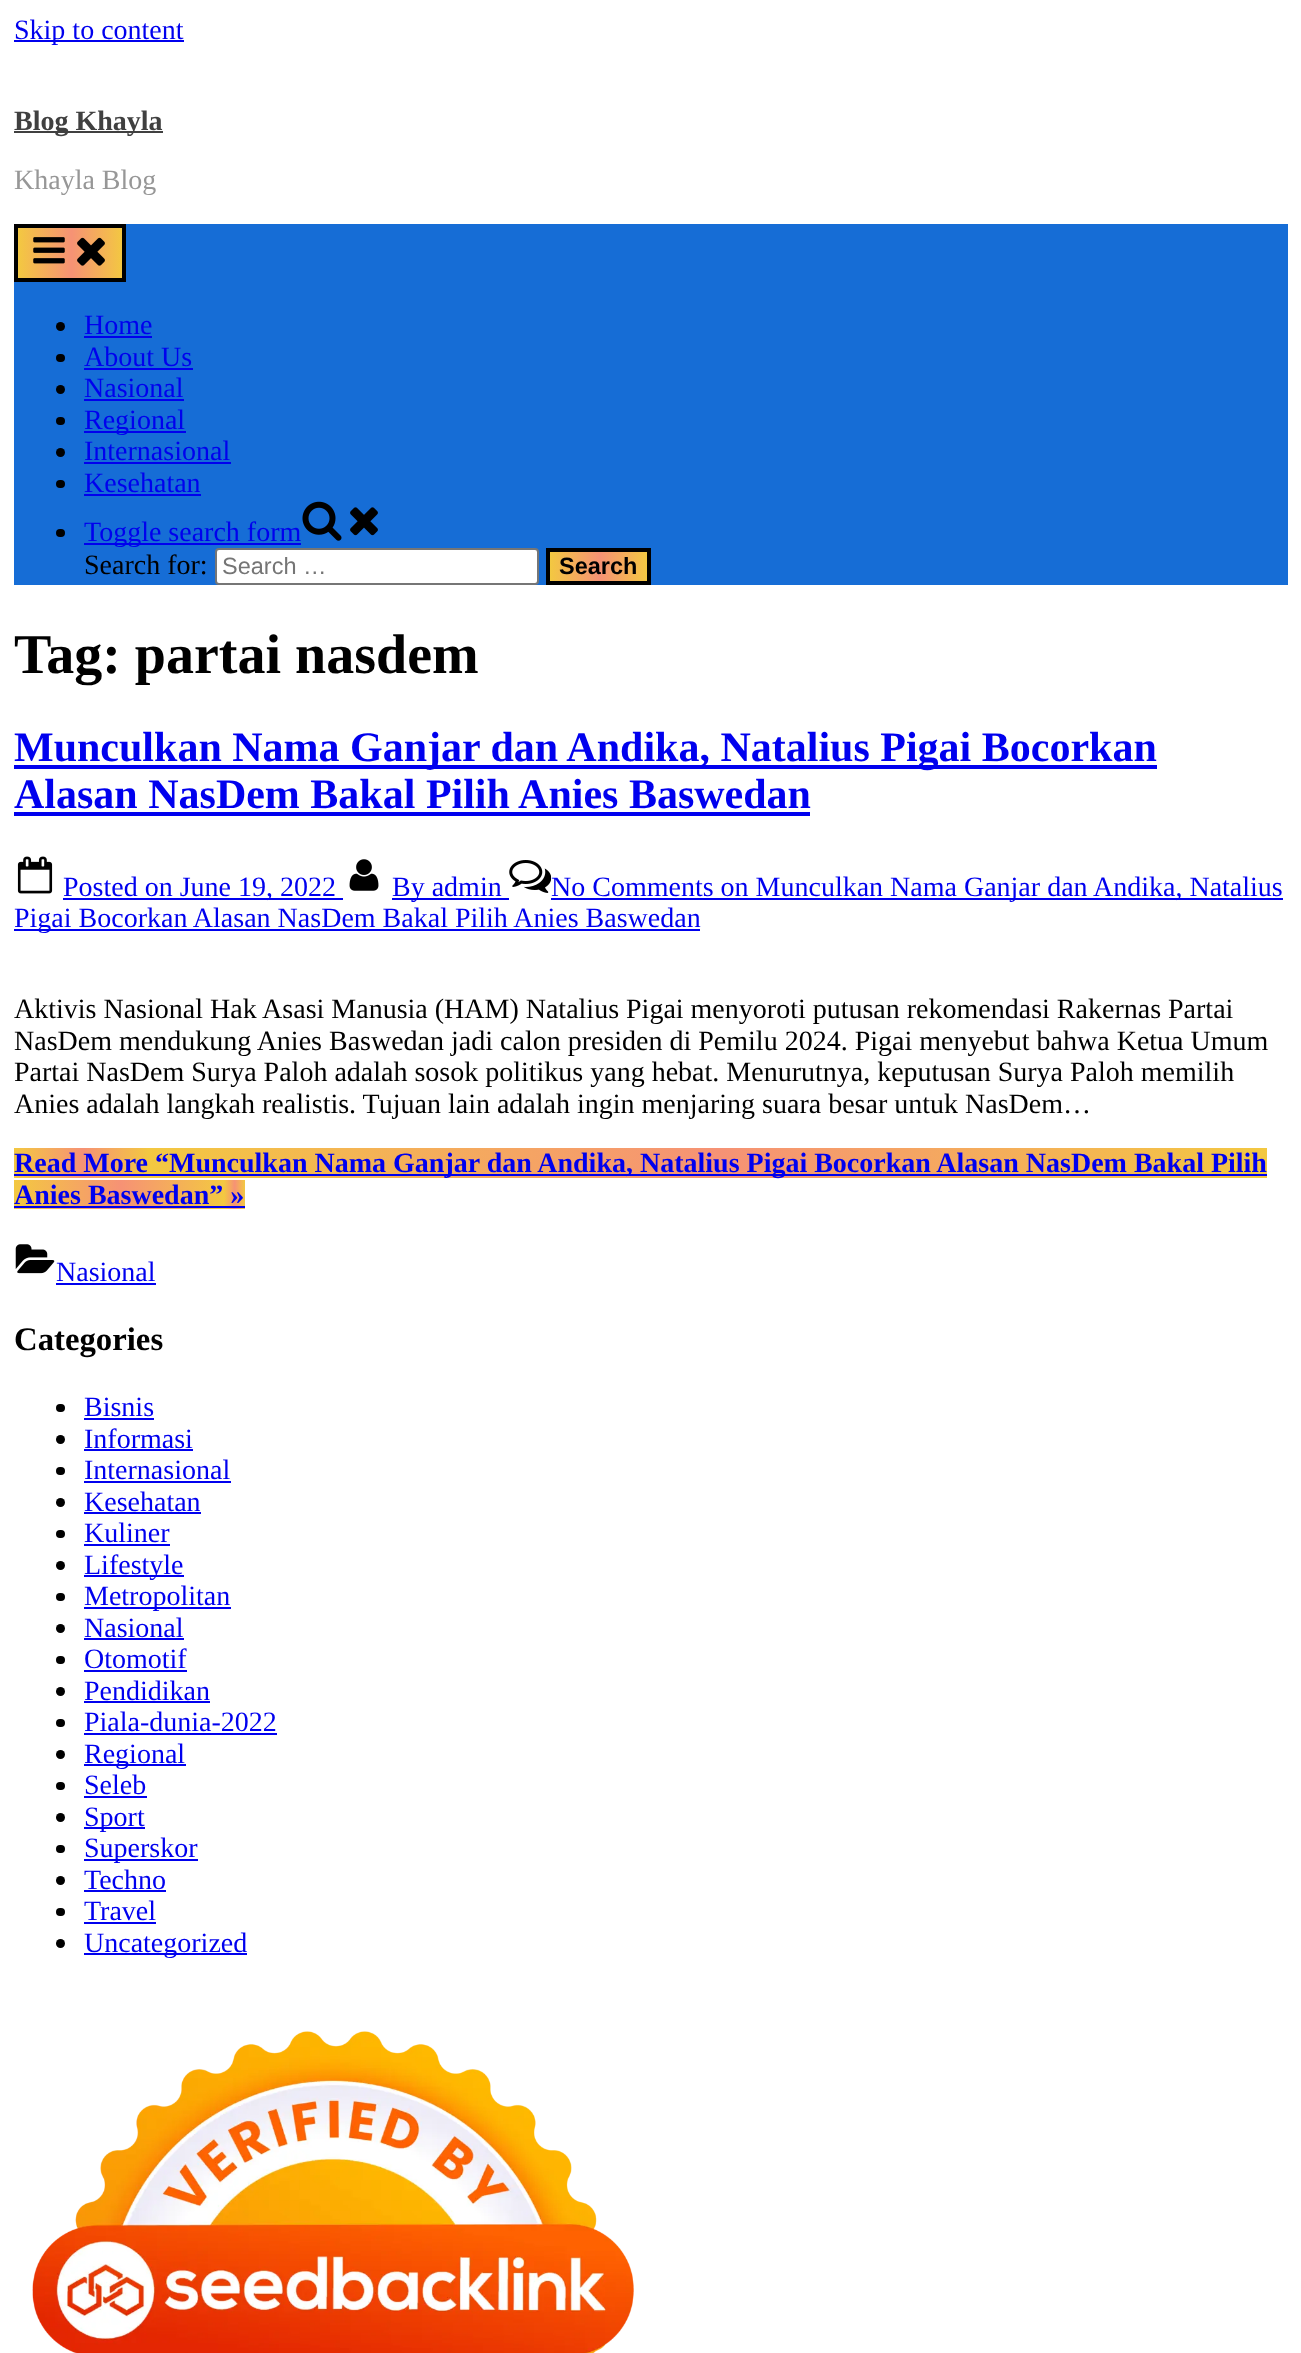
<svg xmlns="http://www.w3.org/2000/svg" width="1301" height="2353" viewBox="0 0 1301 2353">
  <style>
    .t1 { font: 28px Liberation Serif; fill: #00e; }
    .t2 { font: bold 28px Liberation Serif; fill: #404040; }
    .t3 { font: 28px Liberation Serif; fill: #979797; }
    .t4 { font: 28px Liberation Serif; fill: #000; }
    .t5 { font: 23.5px Liberation Sans; fill: #757575; }
    .t6 { font: bold 23.5px Liberation Sans; fill: #000; }
    .t7 { font: bold 56px Liberation Serif; fill: #000; }
    .t8 { font: bold 42px Liberation Serif; fill: #00e; }
    .t9 { font: bold 28px Liberation Serif; fill: #00e; }
    .t10 { font: bold 32.75px Liberation Serif; fill: #000; }
  </style>
  <defs>
    <linearGradient id="g1" gradientUnits="userSpaceOnUse" x1="18" y1="253" x2="123" y2="253"><stop offset="0" stop-color="#f3c841"/><stop offset="0.51" stop-color="#f69275"/><stop offset="1" stop-color="#f3c841"/></linearGradient>
    <linearGradient id="g2" gradientUnits="userSpaceOnUse" x1="550" y1="566" x2="648" y2="566"><stop offset="0" stop-color="#f3c841"/><stop offset="0.51" stop-color="#f69275"/><stop offset="1" stop-color="#f3c841"/></linearGradient>
    <linearGradient id="g3" gradientUnits="userSpaceOnUse" x1="14" y1="1163" x2="149" y2="1163"><stop offset="0" stop-color="#f3c841"/><stop offset="0.51" stop-color="#f69275"/><stop offset="1" stop-color="#f3c841"/></linearGradient>
    <linearGradient id="g4" gradientUnits="userSpaceOnUse" x1="149" y1="1163" x2="1267" y2="1163"><stop offset="0" stop-color="#f3c841"/><stop offset="0.51" stop-color="#f69275"/><stop offset="1" stop-color="#f3c841"/></linearGradient>
    <linearGradient id="g5" gradientUnits="userSpaceOnUse" x1="14" y1="1194" x2="224" y2="1194"><stop offset="0" stop-color="#f3c841"/><stop offset="0.51" stop-color="#f69275"/><stop offset="1" stop-color="#f3c841"/></linearGradient>
    <linearGradient id="g6" gradientUnits="userSpaceOnUse" x1="224" y1="1194" x2="245" y2="1194"><stop offset="0" stop-color="#f3c841"/><stop offset="0.51" stop-color="#f69275"/><stop offset="1" stop-color="#f3c841"/></linearGradient>
  </defs>
  <rect width="100%" height="100%" fill="#fff"/>
  <rect x="14" y="40" width="170" height="2" fill="#00e"/>
  <text x="14" y="39" class="t1">Skip to content</text>
  <rect x="14" y="131" width="149" height="2" fill="#404040"/>
  <text x="14" y="130" class="t2">Blog Khayla</text>
  <text x="14" y="189" class="t3">Khayla Blog</text>
  <rect x="14" y="224" width="1274" height="361" fill="#166dd6"/>
  <rect x="18" y="228" width="104" height="50" fill="url(#g1)"/>
  <rect x="16" y="226" width="108" height="54" fill="none" stroke="#000" stroke-width="4"/>
  <image x="33" y="237" width="32" height="27" href="images/1.png"/>
  <image x="77" y="237" width="28" height="29" href="images/2.png"/>
  <circle cx="60.5" cy="326.5" r="4.5" fill="#000"/>
  <text x="84" y="334" class="t1">Home</text>
  <rect x="84" y="336" width="68" height="2" fill="#00e"/>
  <rect x="56" y="354" width="9" height="8" rx="4" fill="#000"/>
  <text x="84" y="366" class="t1">About Us</text>
  <rect x="84" y="368" width="109" height="2" fill="#00e"/>
  <circle cx="60.5" cy="389.5" r="4.5" fill="#000"/>
  <text x="84" y="397" class="t1">Nasional</text>
  <rect x="84" y="399" width="100" height="2" fill="#00e"/>
  <rect x="56" y="417" width="9" height="8" rx="4" fill="#000"/>
  <rect x="84" y="431" width="102" height="2" fill="#00e"/>
  <text x="84" y="429" class="t1">Regional</text>
  <circle cx="60.5" cy="452.5" r="4.5" fill="#000"/>
  <text x="84" y="460" class="t1">Internasional</text>
  <rect x="84" y="462" width="147" height="2" fill="#00e"/>
  <rect x="56" y="480" width="9" height="8" rx="4" fill="#000"/>
  <text x="84" y="492" class="t1">Kesehatan</text>
  <rect x="84" y="494" width="117" height="2" fill="#00e"/>
  <rect x="56" y="529" width="9" height="8" rx="4" fill="#000"/>
  <rect x="84" y="543" width="217" height="2" fill="#00e"/>
  <text x="84" y="541" class="t1">Toggle search form</text>
  <image x="302" y="501" width="40" height="40" href="images/3.png"/>
  <image x="350" y="507" width="28" height="29" href="images/4.png"/>
  <text x="84" y="574" class="t4">Search for:</text>
  <rect x="216" y="549" width="322" height="35" rx="3" fill="#fff" stroke="#767676" stroke-width="2"/>
  <text x="222" y="574" class="t5">Search …</text>
  <rect x="550" y="552" width="97" height="29" fill="url(#g2)"/>
  <rect x="548" y="550" width="101" height="33" fill="none" stroke="#000" stroke-width="4"/>
  <text x="559" y="574" class="t6">Search</text>
  <text x="14" y="673" class="t7">Tag: partai nasdem</text>
  <rect x="14" y="765" width="1143" height="4" fill="#00e"/>
  <text x="14" y="761" class="t8">Munculkan Nama Ganjar dan Andika, Natalius Pigai Bocorkan</text>
  <text x="14" y="808" class="t8">Alasan NasDem Bakal Pilih Anies Baswedan</text>
  <rect x="14" y="812" width="796" height="4" fill="#00e"/>
  <image x="17" y="856" width="36" height="38" href="images/5.png"/>
  <rect x="63" y="898" width="280" height="2" fill="#00e"/>
  <text x="63" y="896" class="t1">Posted on June 19, 2022</text>
  <image x="349" y="859" width="30" height="32" href="images/6.png"/>
  <rect x="392" y="898" width="117" height="2" fill="#00e"/>
  <text x="392" y="896" class="t1">By admin</text>
  <image x="509" y="860" width="42" height="33" href="images/7.png"/>
  <rect x="551" y="898" width="732" height="2" fill="#00e"/>
  <text x="551" y="896" class="t1">No Comments on Munculkan Nama Ganjar dan Andika, Natalius</text>
  <rect x="14" y="929" width="686" height="2" fill="#00e"/>
  <text x="14" y="927" class="t1">Pigai Bocorkan Alasan NasDem Bakal Pilih Anies Baswedan</text>
  <text x="14" y="1018" class="t4">Aktivis Nasional Hak Asasi Manusia (HAM) Natalius Pigai menyoroti putusan rekomendasi Rakernas Partai</text>
  <text x="14" y="1050" class="t4">NasDem mendukung Anies Baswedan jadi calon presiden di Pemilu 2024. Pigai menyebut bahwa Ketua Umum</text>
  <text x="14" y="1081" class="t4">Partai NasDem Surya Paloh adalah sosok politikus yang hebat. Menurutnya, keputusan Surya Paloh memilih</text>
  <text x="14" y="1113" class="t4">Anies adalah langkah realistis. Tujuan lain adalah ingin menjaring suara besar untuk NasDem…</text>
  <rect x="14" y="1148" width="135" height="30" fill="url(#g3)"/>
  <rect x="149" y="1148" width="1118" height="30" fill="url(#g4)"/>
  <rect x="14" y="1174" width="1253" height="2" fill="#00e"/>
  <text x="14" y="1172" class="t9">Read More “Munculkan Nama Ganjar dan Andika, Natalius Pigai Bocorkan Alasan NasDem Bakal Pilih</text>
  <rect x="14" y="1180" width="210" height="29" fill="url(#g5)"/>
  <rect x="224" y="1180" width="21" height="29" fill="url(#g6)"/>
  <text x="14" y="1204" class="t9">Anies Baswedan” »</text>
  <rect x="14" y="1206" width="231" height="2" fill="#00e"/>
  <image x="15" y="1244" width="40" height="30" href="images/8.png"/>
  <text x="56" y="1281" class="t1">Nasional</text>
  <rect x="56" y="1283" width="100" height="2" fill="#00e"/>
  <text x="14" y="1350" class="t10">Categories</text>
  <rect x="56" y="1404" width="9" height="8" rx="4" fill="#000"/>
  <text x="84" y="1416" class="t1">Bisnis</text>
  <rect x="84" y="1418" width="70" height="2" fill="#00e"/>
  <circle cx="60.5" cy="1439.5" r="4.5" fill="#000"/>
  <text x="84" y="1448" class="t1">Informasi</text>
  <rect x="84" y="1449" width="109" height="2" fill="#00e"/>
  <rect x="56" y="1467" width="9" height="8" rx="4" fill="#000"/>
  <text x="84" y="1479" class="t1">Internasional</text>
  <rect x="84" y="1481" width="147" height="2" fill="#00e"/>
  <circle cx="60.5" cy="1502.5" r="4.5" fill="#000"/>
  <text x="84" y="1511" class="t1">Kesehatan</text>
  <rect x="84" y="1512" width="117" height="2" fill="#00e"/>
  <rect x="56" y="1530" width="9" height="8" rx="4" fill="#000"/>
  <text x="84" y="1542" class="t1">Kuliner</text>
  <rect x="84" y="1544" width="86" height="2" fill="#00e"/>
  <circle cx="60.5" cy="1565.5" r="4.5" fill="#000"/>
  <rect x="84" y="1575" width="100" height="2" fill="#00e"/>
  <text x="84" y="1574" class="t1">Lifestyle</text>
  <rect x="56" y="1593" width="9" height="8" rx="4" fill="#000"/>
  <rect x="84" y="1607" width="147" height="2" fill="#00e"/>
  <text x="84" y="1605" class="t1">Metropolitan</text>
  <circle cx="60.5" cy="1628.5" r="4.5" fill="#000"/>
  <text x="84" y="1637" class="t1">Nasional</text>
  <rect x="84" y="1638" width="100" height="2" fill="#00e"/>
  <rect x="56" y="1656" width="9" height="8" rx="4" fill="#000"/>
  <text x="84" y="1668" class="t1">Otomotif</text>
  <rect x="84" y="1670" width="103" height="2" fill="#00e"/>
  <circle cx="60.5" cy="1691.5" r="4.5" fill="#000"/>
  <text x="84" y="1700" class="t1">Pendidikan</text>
  <rect x="84" y="1701" width="126" height="2" fill="#00e"/>
  <rect x="56" y="1719" width="9" height="8" rx="4" fill="#000"/>
  <text x="84" y="1731" class="t1">Piala-dunia-2022</text>
  <rect x="84" y="1733" width="193" height="2" fill="#00e"/>
  <circle cx="60.5" cy="1754.5" r="4.5" fill="#000"/>
  <rect x="84" y="1764" width="102" height="2" fill="#00e"/>
  <text x="84" y="1763" class="t1">Regional</text>
  <rect x="56" y="1782" width="9" height="8" rx="4" fill="#000"/>
  <text x="84" y="1794" class="t1">Seleb</text>
  <rect x="84" y="1796" width="63" height="2" fill="#00e"/>
  <circle cx="60.5" cy="1817.5" r="4.5" fill="#000"/>
  <rect x="84" y="1827" width="61" height="2" fill="#00e"/>
  <text x="84" y="1826" class="t1">Sport</text>
  <rect x="56" y="1845" width="9" height="8" rx="4" fill="#000"/>
  <rect x="84" y="1859" width="114" height="2" fill="#00e"/>
  <text x="84" y="1857" class="t1">Superskor</text>
  <circle cx="60.5" cy="1880.5" r="4.5" fill="#000"/>
  <text x="84" y="1889" class="t1">Techno</text>
  <rect x="84" y="1890" width="82" height="2" fill="#00e"/>
  <rect x="56" y="1908" width="9" height="8" rx="4" fill="#000"/>
  <text x="84" y="1920" class="t1">Travel</text>
  <rect x="84" y="1922" width="72" height="2" fill="#00e"/>
  <circle cx="60.5" cy="1943.5" r="4.5" fill="#000"/>
  <rect x="84" y="1953" width="163" height="2" fill="#00e"/>
  <text x="84" y="1952" class="t1">Uncategorized</text>
  <image x="32" y="2031" width="602" height="322" href="images/9.png"/>
</svg>
